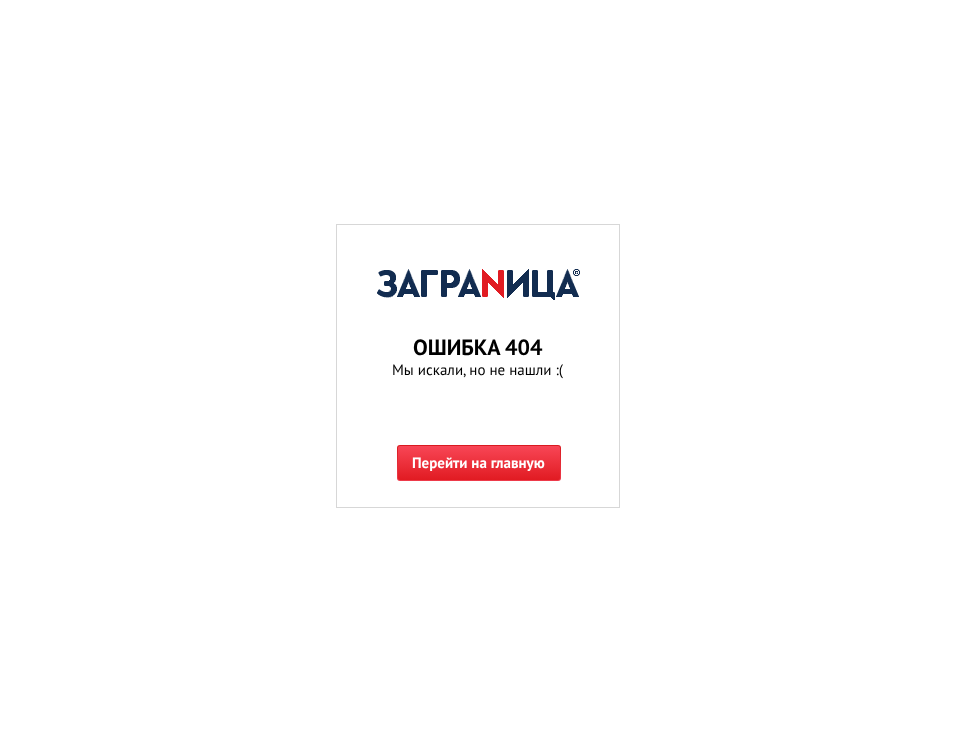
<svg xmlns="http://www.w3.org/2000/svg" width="955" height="732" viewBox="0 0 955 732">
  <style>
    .t1 { font: bold 22px PT Sans; fill: #000; }
    .t2 { font: 15px PT Sans; fill: #000; }
    .t3 { font: bold 15px PT Sans; fill: #fff; }
  </style>
  <defs>
    <linearGradient id="g1" gradientUnits="userSpaceOnUse" x1="479" y1="481" x2="479" y2="445"><stop offset="0" stop-color="#ee3b4b"/><stop offset="1" stop-color="#d91a20"/></linearGradient>
    <linearGradient id="g2" gradientUnits="userSpaceOnUse" x1="479" y1="480" x2="479" y2="446"><stop offset="0" stop-color="#e11b22"/><stop offset="1" stop-color="#f84656"/></linearGradient>
  </defs>
  <rect width="100%" height="100%" fill="#fff"/>
  <rect x="336.5" y="224.5" width="283" height="283" fill="none" stroke="#d7d7d7"/>
  <image x="377" y="269" width="203" height="31" href="images/1.png"/>
  <text x="413" y="355" class="t1">ОШИБКА 404</text>
  <text x="392" y="375" class="t2">Мы искали, но не нашли :(</text>
  <rect x="397" y="445" width="164" height="36" rx="3" fill="url(#g1)"/>
  <rect x="398" y="446" width="162" height="34" rx="2" fill="url(#g2)"/>
  <text x="412" y="468" class="t3">Перейти на главную</text>
</svg>
